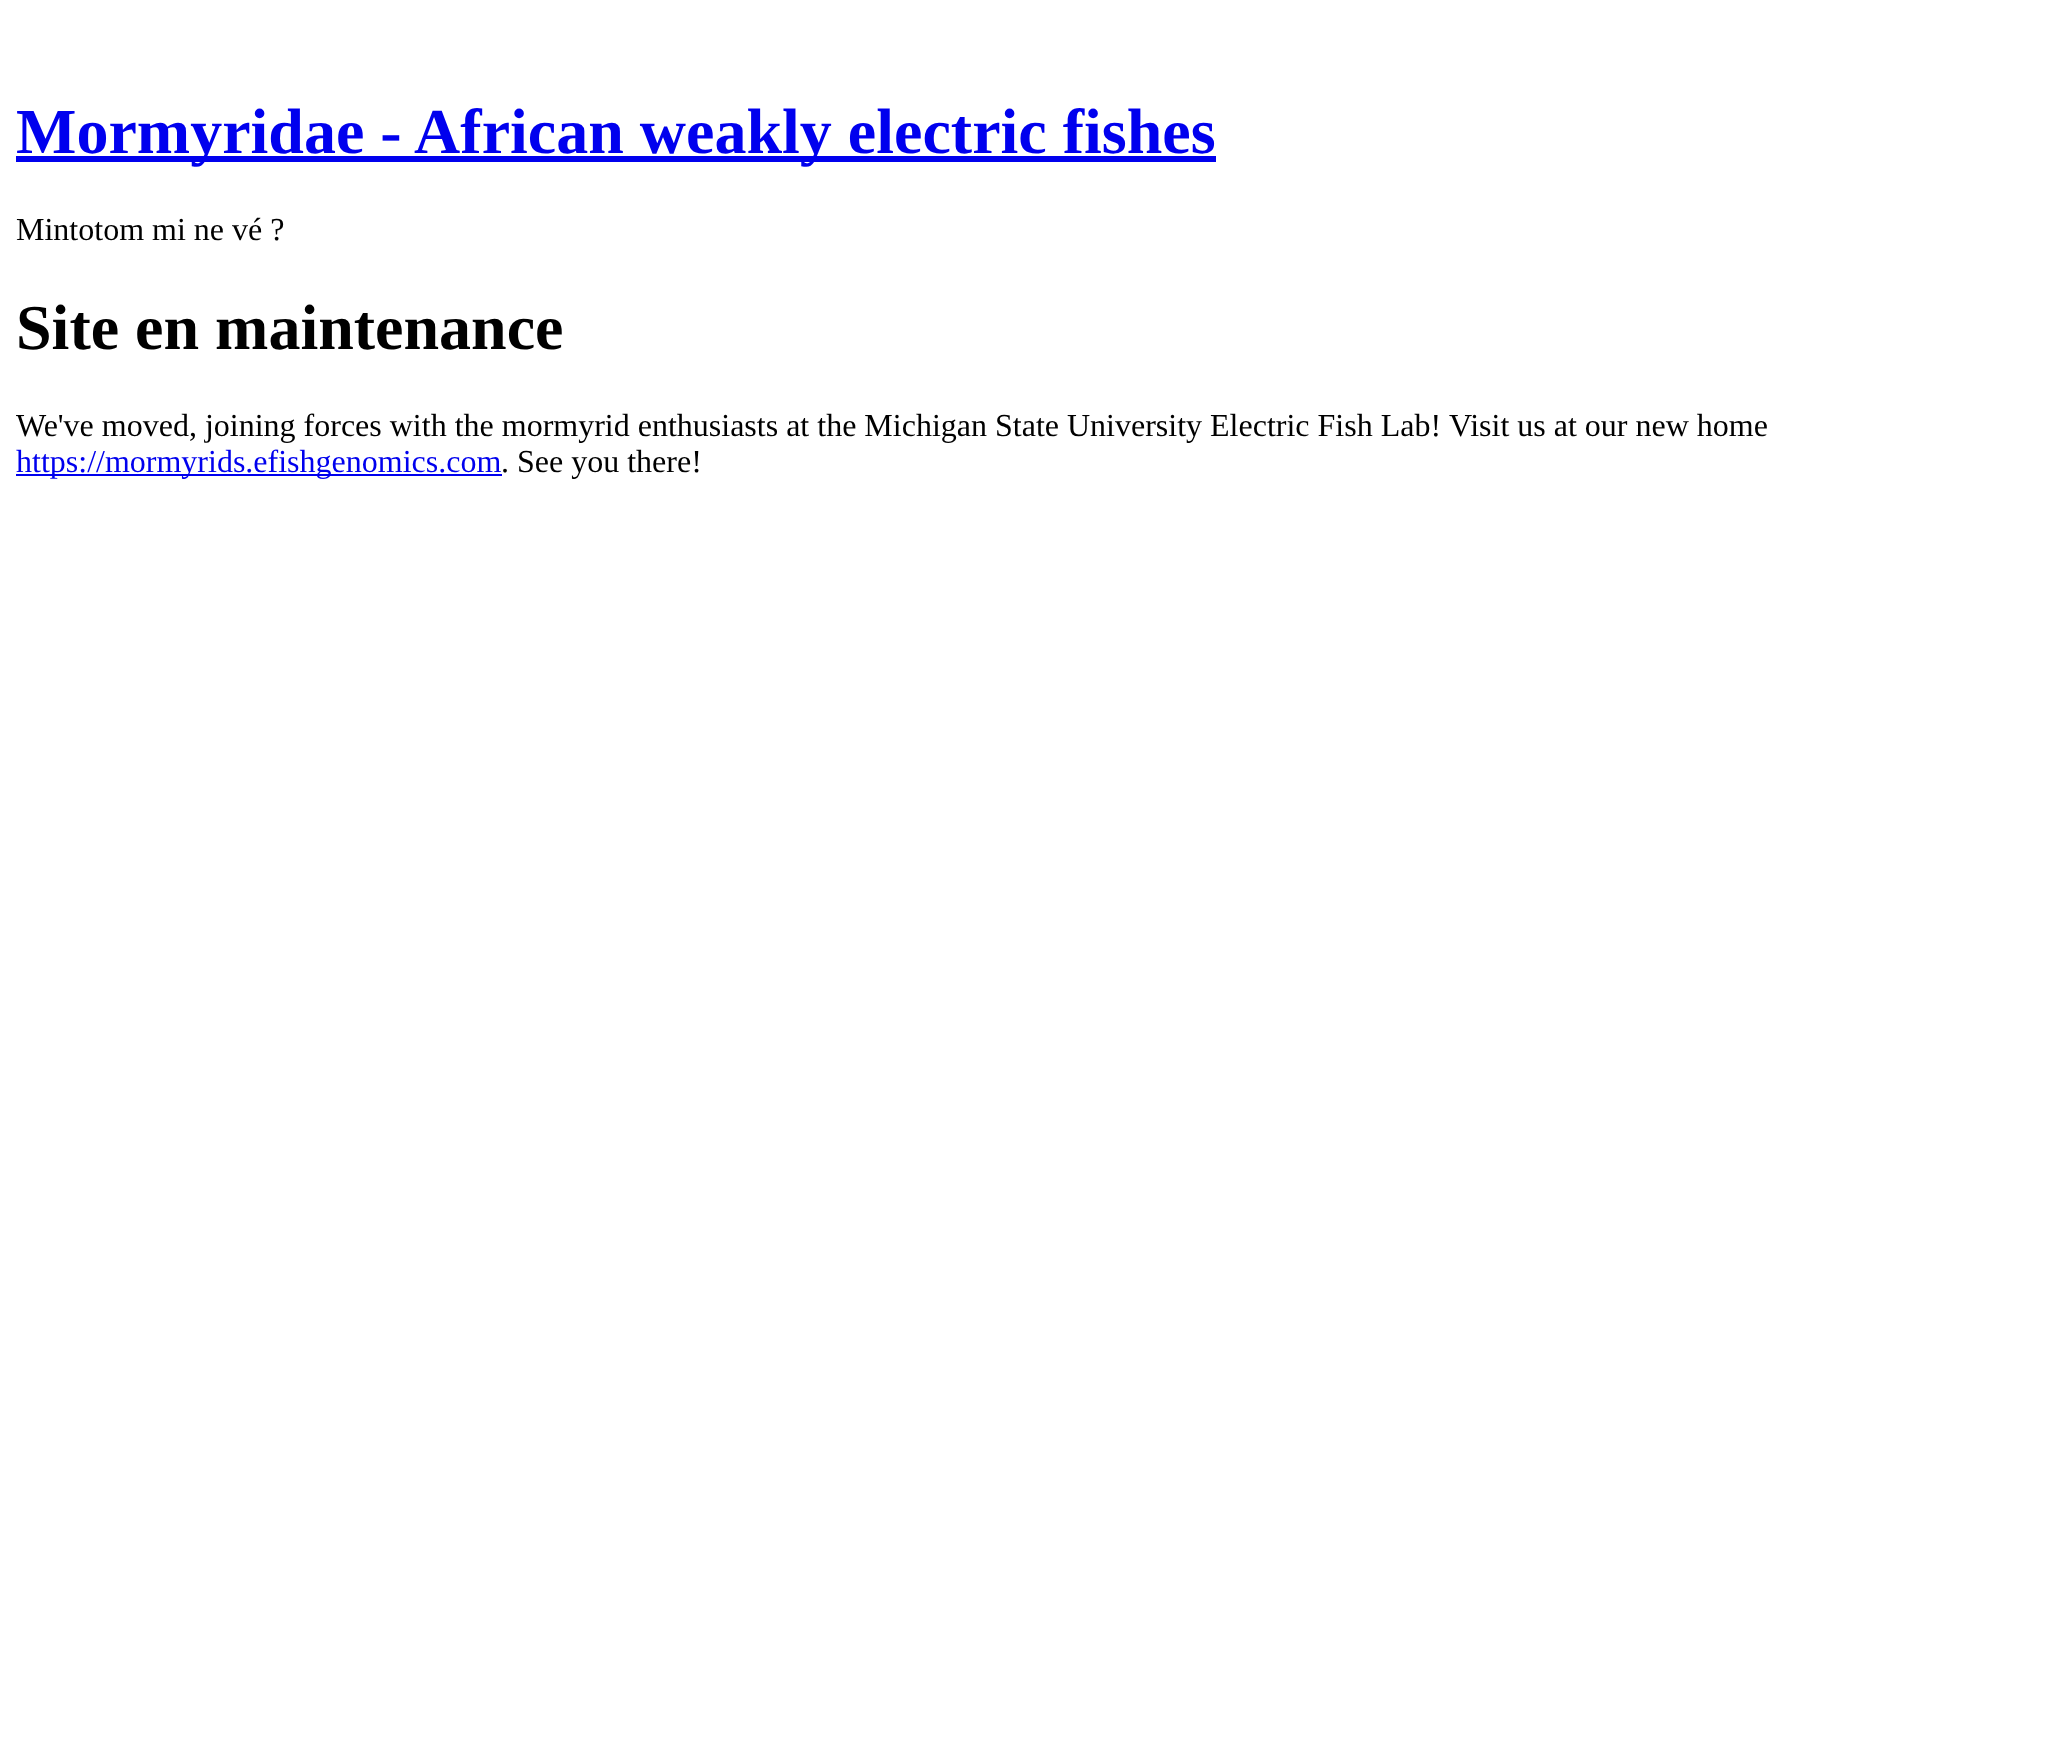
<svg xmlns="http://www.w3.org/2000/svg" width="2046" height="1759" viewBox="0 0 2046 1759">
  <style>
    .t1 { font: bold 64px Liberation Serif; fill: #00e; }
    .t2 { font: 32px Liberation Serif; fill: #000; }
    .t3 { font: bold 64px Liberation Serif; fill: #000; }
    .t4 { font: 32px Liberation Serif; fill: #00e; }
  </style>
  <rect width="100%" height="100%" fill="#fff"/>
  <rect x="16" y="156" width="1200" height="6" fill="#00e"/>
  <text x="16" y="153" class="t1">Mormyridae - African weakly electric fishes</text>
  <text x="16" y="240" class="t2">Mintotom mi ne vé ?</text>
  <text x="16" y="349" class="t3">Site en maintenance</text>
  <text x="16" y="436" class="t2">We've moved, joining forces with the mormyrid enthusiasts at the Michigan State University Electric Fish Lab!</text>
  <text x="1449" y="436" class="t2">Visit us at our new home</text>
  <rect x="16" y="474" width="486" height="2" fill="#00e"/>
  <text x="16" y="472" class="t4">https://mormyrids.efishgenomics.com</text>
  <text x="501" y="472" class="t2">. See you there!</text>
</svg>
